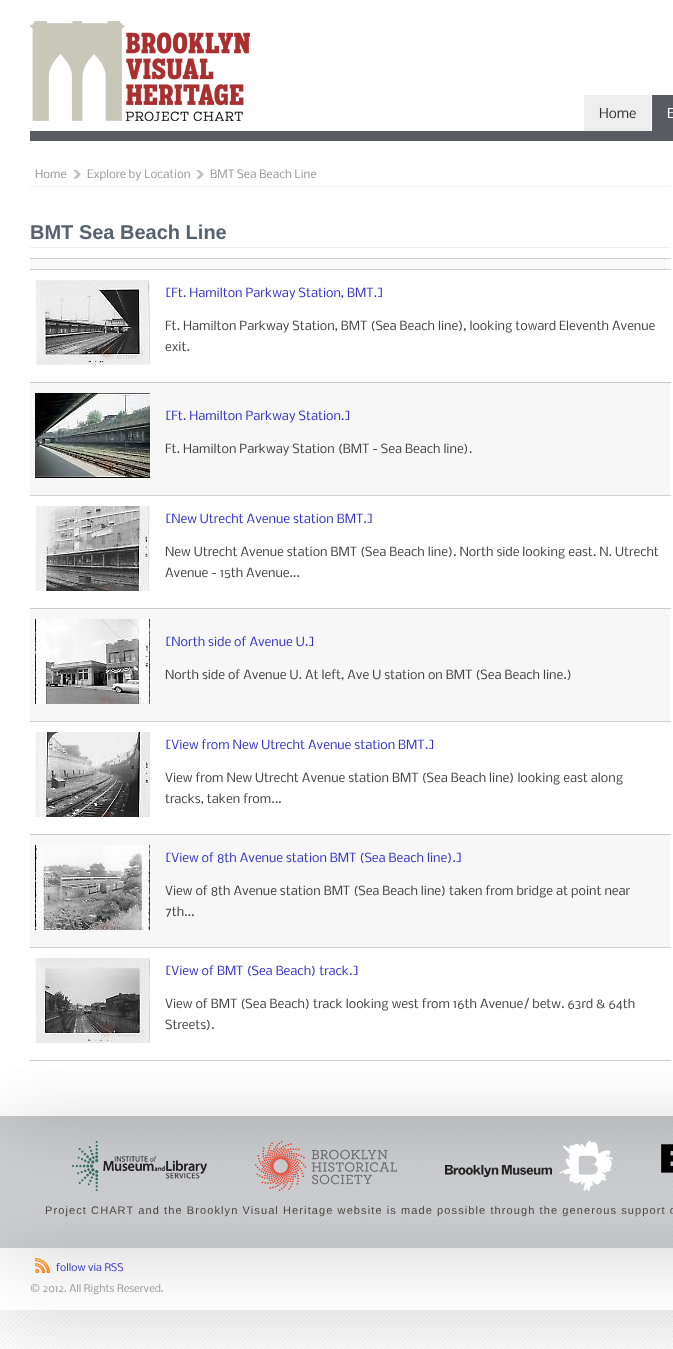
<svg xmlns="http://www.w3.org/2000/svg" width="673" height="1349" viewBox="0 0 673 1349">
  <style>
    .t1 { font: 13px Nobile; fill: #333; }
    .t2 { font: 13px Nobile; fill: #fff; }
    .t3 { font: 11px Nobile; fill: #999; }
    .t4 { font: bold 20px Liberation Sans; fill: #556270; }
    .t5 { font: 12px Nobile; fill: #33c; }
    .t6 { font: 12px Nobile; fill: #444; }
    .t7 { font: 11px Liberation Sans; letter-spacing: 1.1px; fill: #4f4640; }
    .t8 { font: 10px Nobile; fill: #33c; }
    .t9 { font: 10px Nobile; fill: #999; }
  </style>
  <defs>
    <clipPath id="clip1"><path d="M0 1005H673V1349H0ZM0 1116H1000V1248H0Z" clip-rule="evenodd"/></clipPath>
  </defs>
  <rect width="100%" height="100%" fill="#fff"/>
  <image x="0" y="0" width="673" height="1349" href="images/1.png"/>
  <rect x="0" y="1116" width="673" height="132" fill="#73757e59"/>
  <rect x="0" y="10" width="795" height="1116" rx="2" fill="#00000026" filter="blur(40px)"/>
  <rect x="0" y="0" width="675" height="1116" rx="2" fill="#fff"/>
  <rect x="30" y="131" width="643" height="10" fill="#585b62"/>
  <image x="30" y="21" width="220" height="100" href="images/2.png"/>
  <rect x="584" y="95" width="67" height="36" fill="#eee"/>
  <text x="599" y="118" class="t1">Home</text>
  <rect x="652" y="95" width="21" height="36" fill="#585b62"/>
  <text x="667" y="118" class="t2">E</text>
  <rect x="30" y="186" width="640" height="1" fill="#efefef"/>
  <text x="35" y="178" class="t3">Home</text>
  <image x="73" y="170" width="8" height="9" href="images/3.png"/>
  <text x="87" y="178" class="t3">Explore by Location</text>
  <image x="196" y="170" width="8" height="9" href="images/3.png"/>
  <text x="210" y="178" class="t3">BMT Sea Beach Line</text>
  <rect x="30" y="247" width="640" height="1" fill="#efefef"/>
  <text x="30" y="239" class="t4">BMT Sea Beach Line</text>
  <rect x="30" y="259" width="640" height="10" fill="#f8f8f8"/>
  <rect x="30" y="258" width="641" height="1" fill="#d1d1d1"/>
  <rect x="30" y="269" width="641" height="1" fill="#d1d1d1"/>
  <rect x="30" y="382" width="641" height="1" fill="#ccc"/>
  <image x="35" y="280" width="115" height="85" href="images/4.png"/>
  <text x="165" y="297" class="t5">[Ft. Hamilton Parkway Station, BMT.]</text>
  <text x="165" y="330" class="t6">Ft. Hamilton Parkway Station, BMT (Sea Beach line), looking toward Eleventh Avenue</text>
  <text x="165" y="351" class="t6">exit.</text>
  <rect x="30" y="383" width="640" height="112" fill="#f7f7f7"/>
  <image x="35" y="393" width="115" height="85" href="images/5.png"/>
  <rect x="30" y="495" width="641" height="1" fill="#d1d1d1"/>
  <text x="165" y="420" class="t5">[Ft. Hamilton Parkway Station.]</text>
  <text x="165" y="453" class="t6">Ft. Hamilton Parkway Station (BMT - Sea Beach line).</text>
  <rect x="30" y="608" width="641" height="1" fill="#ccc"/>
  <image x="35" y="506" width="115" height="85" href="images/6.png"/>
  <text x="165" y="523" class="t5">[New Utrecht Avenue station BMT.]</text>
  <text x="165" y="556" class="t6">New Utrecht Avenue station BMT (Sea Beach line). North side looking east. N. Utrecht</text>
  <text x="165" y="577" class="t6">Avenue - 15th Avenue...</text>
  <rect x="30" y="609" width="640" height="112" fill="#f7f7f7"/>
  <image x="35" y="619" width="115" height="85" href="images/7.png"/>
  <rect x="30" y="721" width="641" height="1" fill="#d1d1d1"/>
  <text x="165" y="646" class="t5">[North side of Avenue U.]</text>
  <text x="165" y="679" class="t6">North side of Avenue U. At left, Ave U station on BMT (Sea Beach line.)</text>
  <rect x="30" y="834" width="641" height="1" fill="#ccc"/>
  <image x="35" y="732" width="115" height="85" href="images/8.png"/>
  <text x="165" y="749" class="t5">[View from New Utrecht Avenue station BMT.]</text>
  <text x="165" y="782" class="t6">View from New Utrecht Avenue station BMT (Sea Beach line) looking east along</text>
  <text x="165" y="803" class="t6">tracks, taken from...</text>
  <rect x="30" y="835" width="640" height="112" fill="#f7f7f7"/>
  <image x="35" y="845" width="115" height="85" href="images/9.png"/>
  <rect x="30" y="947" width="641" height="1" fill="#d1d1d1"/>
  <text x="165" y="862" class="t5">[View of 8th Avenue station BMT (Sea Beach line).]</text>
  <text x="165" y="895" class="t6">View of 8th Avenue station BMT (Sea Beach line) taken from bridge at point near</text>
  <text x="165" y="916" class="t6">7th...</text>
  <rect x="0" y="1258" width="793" height="62" fill="#00000026" filter="blur(40px)"/>
  <rect x="0" y="1248" width="673" height="62" fill="#fff"/>
  <g clip-path="url(#clip1)">
    <rect x="0" y="1126" width="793" height="132" fill="#00000026" filter="blur(40px)"/>
  </g>
  <rect x="30" y="1060" width="641" height="1" fill="#ccc"/>
  <image x="35" y="958" width="115" height="85" href="images/10.png"/>
  <text x="165" y="975" class="t5">[View of BMT (Sea Beach) track.]</text>
  <text x="165" y="1008" class="t6">View of BMT (Sea Beach) track looking west from 16th Avenue/ betw. 63rd &amp; 64th</text>
  <text x="165" y="1029" class="t6">Streets).</text>
  <image x="72" y="1141" width="135" height="50" href="images/11.png"/>
  <image x="255" y="1141" width="142" height="50" href="images/12.png"/>
  <image x="445" y="1141" width="168" height="50" href="images/13.png"/>
  <image x="661" y="1144" width="12" height="29" href="images/14.png"/>
  <text x="45" y="1214" class="t7">Project CHART and the Brooklyn Visual Heritage website is made possible through the generous support o</text>
  <image x="35" y="1258" width="15" height="15" href="images/15.png"/>
  <text x="56" y="1271" class="t8">follow via RSS</text>
  <text x="30" y="1292" class="t9">© 2012. All Rights Reserved.</text>
</svg>
